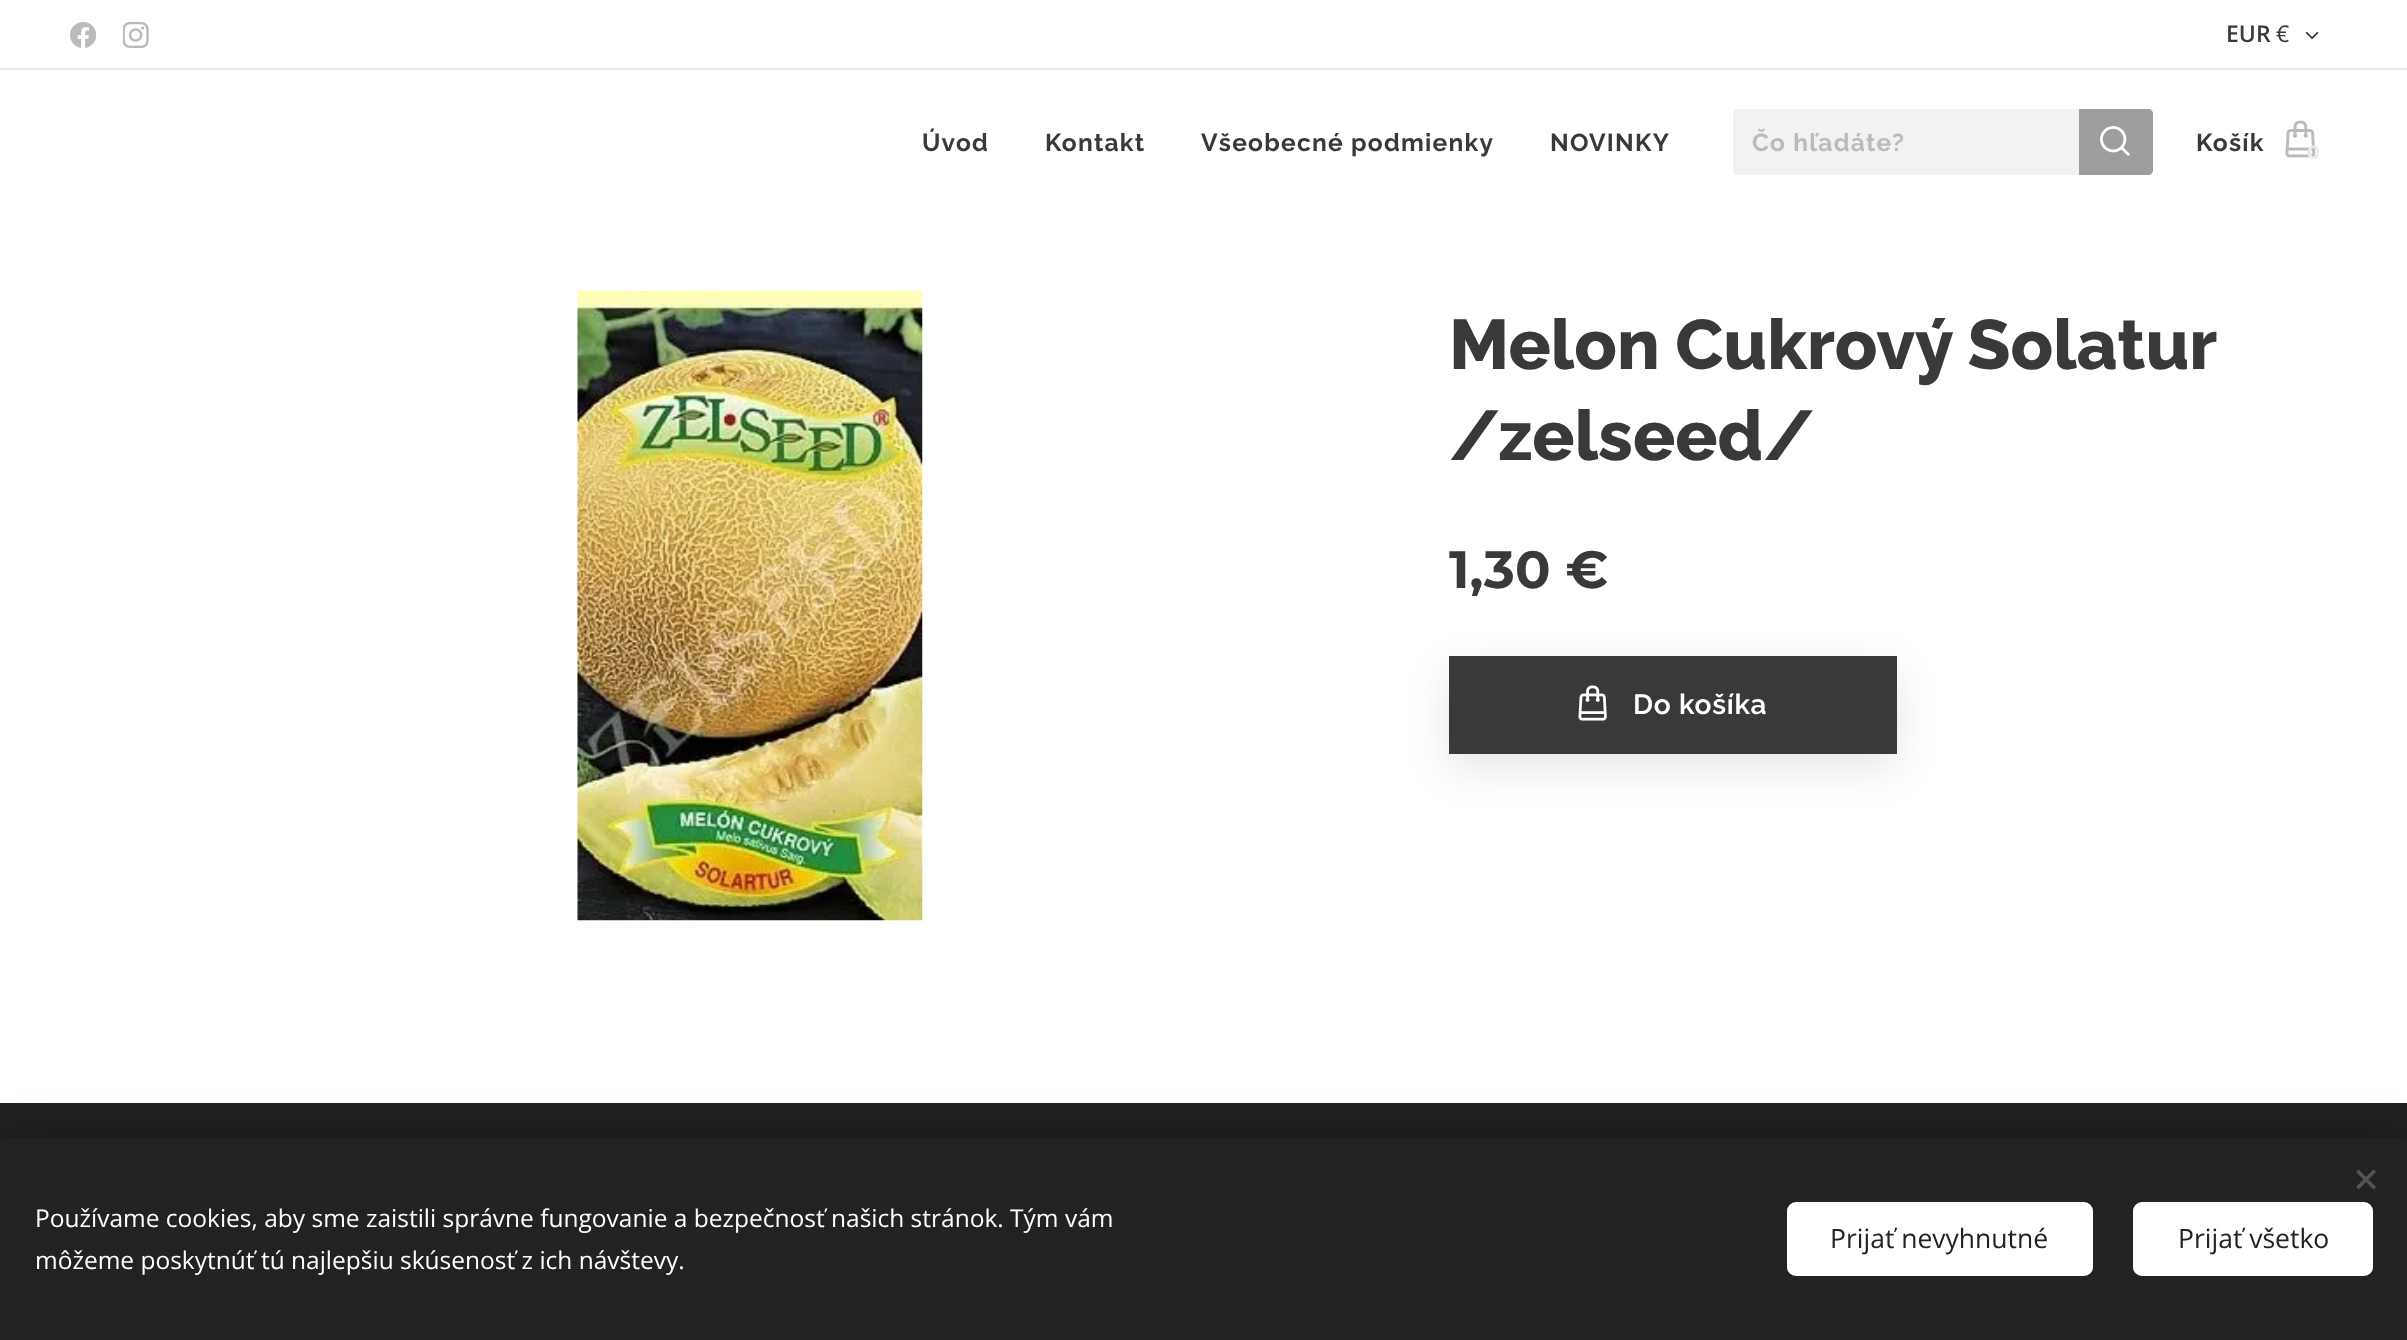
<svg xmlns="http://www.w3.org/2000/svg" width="2407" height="1340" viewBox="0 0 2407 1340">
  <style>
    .t1 { font: 600 23px Open Sans; fill: #393939; }
    .t2 { font: 23px Open Sans; fill: #393939; }
    .t3 { font: bold 24.5px Raleway; letter-spacing: 1.25px; fill: #393939; }
    .t4 { font: bold 24.5px Raleway; letter-spacing: 1.25px; fill: #bababa; }
    .t5 { font: bold 19px Montserrat; fill: #ebebeb; }
    .t6 { font: 800 70px Raleway; fill: #393939; }
    .t7 { font: bold 52.5px Montserrat; fill: #393939; }
    .t8 { font: 600 28px Raleway; letter-spacing: 0.75px; fill: #fff; }
    .t9 { font: 24.5px Open Sans; fill: #fff; }
    .t10 { font: 26.5px Open Sans; fill: #222; }
  </style>
  <rect width="100%" height="100%" fill="#fff"/>
  <image x="70" y="22" width="26" height="26" href="images/1.png"/>
  <image x="123" y="21" width="26" height="28" href="images/2.png"/>
  <text x="2226" y="42" class="t1">EUR</text>
  <text x="2276" y="42" class="t2">€</text>
  <image x="2305" y="31" width="14" height="9" href="images/3.png"/>
  <rect x="0" y="68" width="2407" height="2" fill="#e8e8e8"/>
  <text x="922" y="151" class="t3">Úvod</text>
  <text x="1045" y="151" class="t3">Kontakt</text>
  <text x="1201" y="151" class="t3">Všeobecné podmienky</text>
  <text x="1550" y="151" class="t3">NOVINKY</text>
  <path d="M1738 109H2079V175H1738C1735 175 1733 173 1733 170V114C1733 111 1735 109 1738 109Z" fill="#f2f2f2"/>
  <text x="1752" y="151" class="t4">Čo hľadáte?</text>
  <path d="M2079 109H2148C2151 109 2153 111 2153 114V170C2153 173 2151 175 2148 175H2079Z" fill="#9d9d9d"/>
  <image x="2100" y="126" width="30" height="30" href="images/4.png"/>
  <text x="2196" y="151" class="t3">Košík</text>
  <image x="2285" y="120" width="31" height="38" href="images/5.png"/>
  <text x="2307" y="159" class="t5">0</text>
  <image x="577" y="290" width="346" height="631" href="images/6.png"/>
  <text x="1449" y="369" word-spacing="-1" class="t6">Melon Cukrový Solatur</text>
  <text x="1449" y="460" class="t6">/zelseed/</text>
  <text x="1449" y="588" class="t7">1,30 €</text>
  <rect x="1449" y="670" width="448" height="98" fill="#0000001a" filter="blur(22px)"/>
  <rect x="1449" y="656" width="448" height="98" fill="#393939"/>
  <image x="1578" y="685" width="29" height="36" href="images/7.png"/>
  <text x="1633" y="714" class="t8">Do košíka</text>
  <rect x="0" y="1103" width="2407" height="35" fill="#222"/>
  <rect x="0" y="1138" width="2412" height="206" fill="#00000054" filter="blur(22px)"/>
  <rect x="0" y="1138" width="2407" height="202" fill="#222"/>
  <path d="M2356 1187L2373.5 1169.5L2376 1172L2358.5 1189.5Z" fill="#555"/>
  <path d="M2358.5 1169.5L2376 1187L2373.5 1189.5L2356 1172Z" fill="#555"/>
  <text x="35" y="1227" class="t9">Používame cookies, aby sme zaistili správne fungovanie a bezpečnosť našich stránok. Tým vám</text>
  <text x="35" y="1269" class="t9">môžeme poskytnúť tú najlepšiu skúsenosť z ich návštevy.</text>
  <rect x="1787" y="1202" width="306" height="74" rx="9" fill="#fff"/>
  <text x="1830" y="1248" class="t10">Prijať nevyhnutné</text>
  <rect x="2133" y="1202" width="240" height="74" rx="9" fill="#fff"/>
  <text x="2178" y="1248" class="t10">Prijať všetko</text>
</svg>
